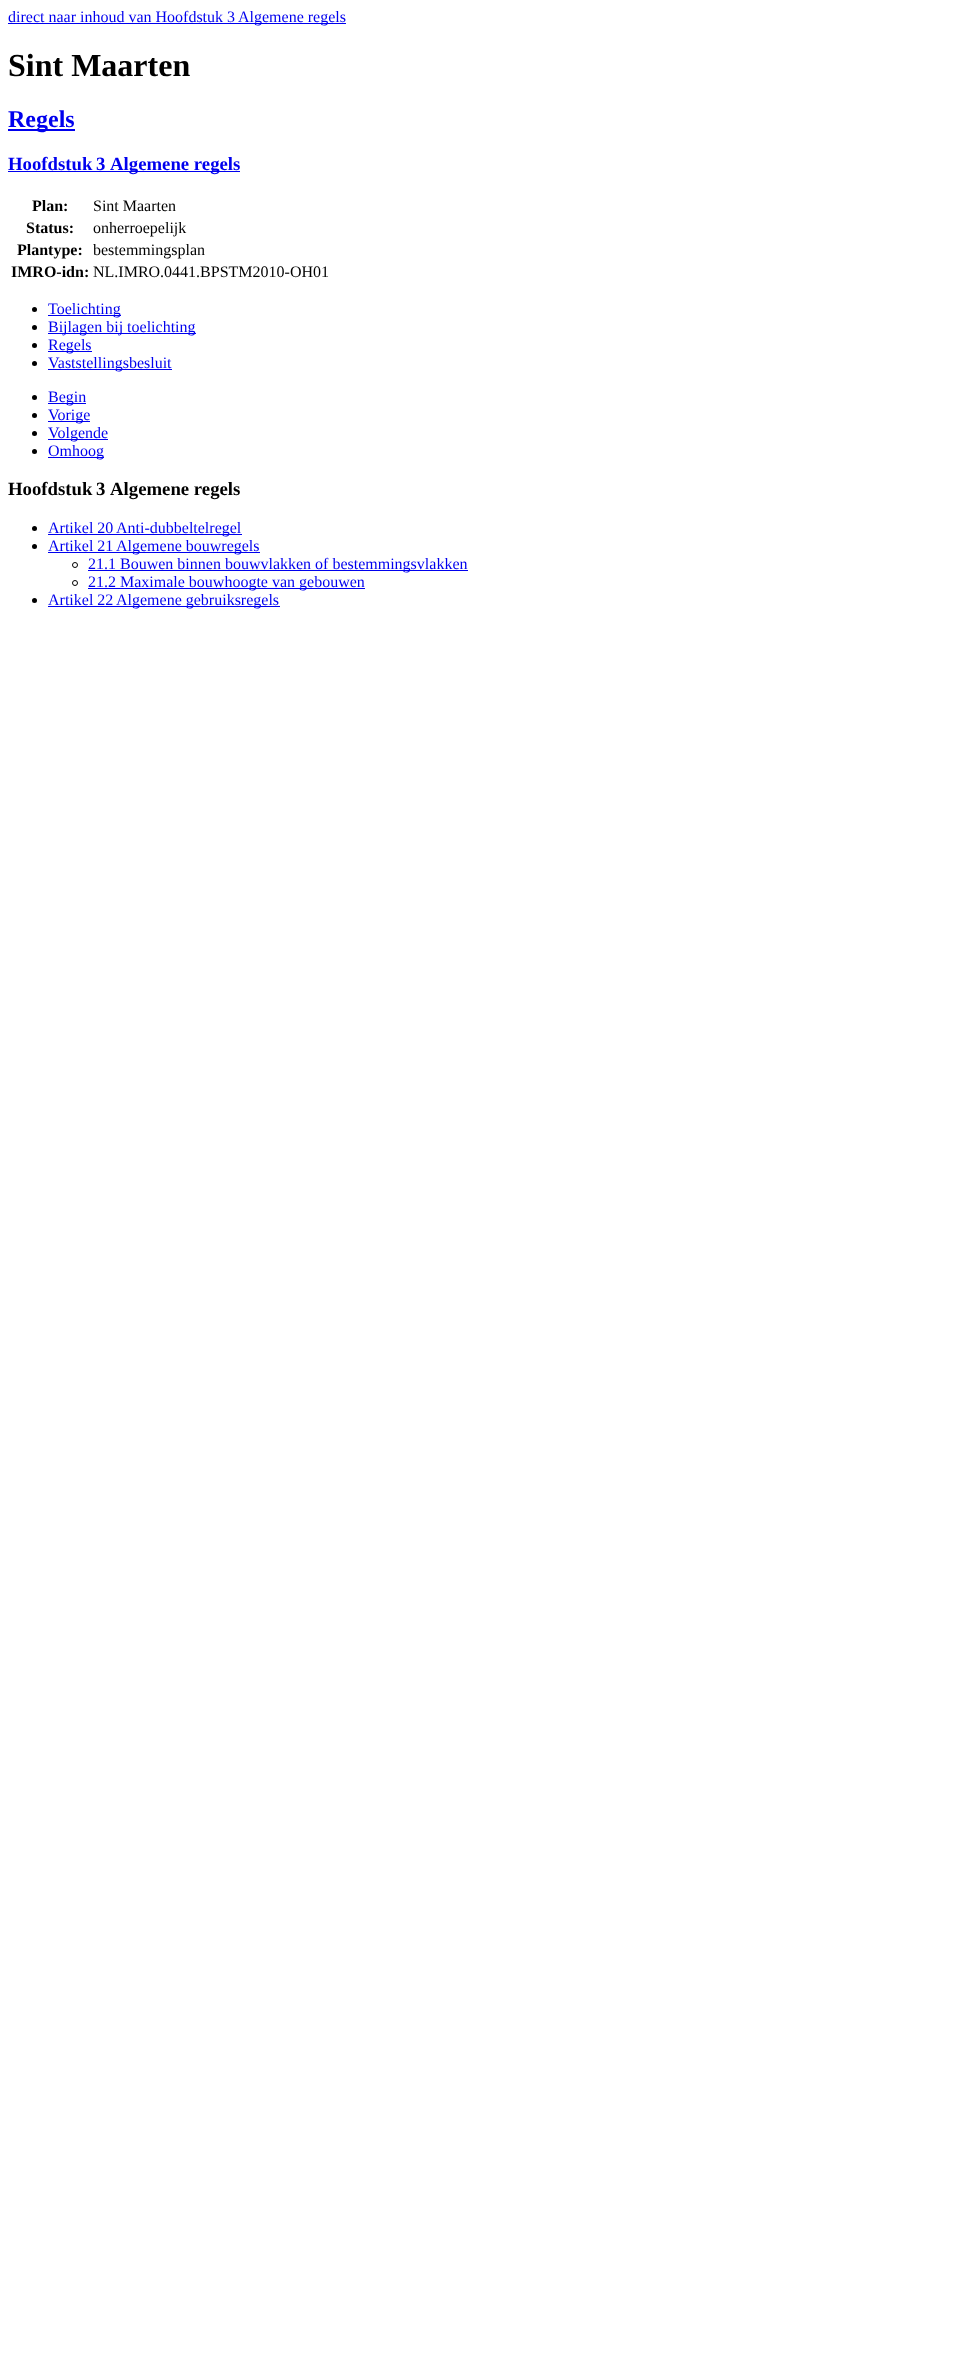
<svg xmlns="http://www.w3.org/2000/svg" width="959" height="2374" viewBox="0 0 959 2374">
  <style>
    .t1 { font: 16px Liberation Serif; fill: #00e; }
    .t2 { font: bold 32px Liberation Serif; fill: #000; }
    .t3 { font: bold 24px Liberation Serif; fill: #00e; }
    .t4 { font: bold 18.75px Liberation Serif; fill: #00e; }
    .t5 { font: bold 16px Liberation Serif; fill: #000; }
    .t6 { font: 16px Liberation Serif; fill: #000; }
    .t7 { font: bold 18.75px Liberation Serif; fill: #000; }
  </style>
  <rect width="100%" height="100%" fill="#fff"/>
  <text x="8" y="22" class="t1">direct naar inhoud van Hoofdstuk 3</text>
  <rect x="8" y="23" width="338" height="1" fill="#00e"/>
  <text x="238" y="22" class="t1">Algemene regels</text>
  <text x="8" y="76" class="t2">Sint Maarten</text>
  <rect x="8" y="129" width="67" height="2" fill="#00e"/>
  <text x="8" y="127" class="t3">Regels</text>
  <text x="8" y="170" word-spacing="-1" class="t4">Hoofdstuk 3</text>
  <rect x="8" y="171" width="232" height="1" fill="#00e"/>
  <text x="110" y="170" class="t4">Algemene regels</text>
  <text x="32" y="211" class="t5">Plan:</text>
  <text x="93" y="211" class="t6">Sint Maarten</text>
  <text x="26" y="233" class="t5">Status:</text>
  <text x="93" y="233" class="t6">onherroepelijk</text>
  <text x="17" y="255" class="t5">Plantype:</text>
  <text x="93" y="255" class="t6">bestemmingsplan</text>
  <text x="11" y="277" class="t5">IMRO-idn:</text>
  <text x="93" y="277" class="t6">NL.IMRO.0441.BPSTM2010-OH01</text>
  <circle cx="34.5" cy="309.5" r="2.5" fill="#000"/>
  <rect x="48" y="315" width="73" height="1" fill="#00e"/>
  <text x="48" y="314" class="t1">Toelichting</text>
  <circle cx="34.5" cy="327.5" r="2.5" fill="#000"/>
  <rect x="48" y="333" width="148" height="1" fill="#00e"/>
  <text x="48" y="332" class="t1">Bijlagen bij toelichting</text>
  <circle cx="34.5" cy="345.5" r="2.5" fill="#000"/>
  <rect x="48" y="351" width="44" height="1" fill="#00e"/>
  <text x="48" y="350" class="t1">Regels</text>
  <circle cx="34.5" cy="363.5" r="2.5" fill="#000"/>
  <rect x="48" y="369" width="124" height="1" fill="#00e"/>
  <text x="48" y="368" class="t1">Vaststellingsbesluit</text>
  <circle cx="34.5" cy="397.5" r="2.5" fill="#000"/>
  <rect x="48" y="403" width="38" height="1" fill="#00e"/>
  <text x="48" y="402" class="t1">Begin</text>
  <circle cx="34.5" cy="415.5" r="2.5" fill="#000"/>
  <rect x="48" y="421" width="42" height="1" fill="#00e"/>
  <text x="48" y="420" class="t1">Vorige</text>
  <circle cx="34.5" cy="433.5" r="2.5" fill="#000"/>
  <rect x="48" y="439" width="60" height="1" fill="#00e"/>
  <text x="48" y="438" class="t1">Volgende</text>
  <circle cx="34.5" cy="451.5" r="2.5" fill="#000"/>
  <rect x="48" y="457" width="56" height="1" fill="#00e"/>
  <text x="48" y="456" class="t1">Omhoog</text>
  <text x="8" y="495" word-spacing="-1" class="t7">Hoofdstuk 3</text>
  <text x="110" y="495" class="t7">Algemene regels</text>
  <circle cx="34.5" cy="528.5" r="2.5" fill="#000"/>
  <text x="48" y="533" class="t1">Artikel 20</text>
  <rect x="48" y="534" width="194" height="1" fill="#00e"/>
  <text x="116" y="533" class="t1">Anti-dubbeltelregel</text>
  <circle cx="34.5" cy="546.5" r="2.5" fill="#000"/>
  <text x="48" y="551" class="t1">Artikel 21</text>
  <rect x="48" y="552" width="212" height="1" fill="#00e"/>
  <text x="116" y="551" class="t1">Algemene bouwregels</text>
  <circle cx="75" cy="565" r="2.5" fill="none" stroke="#000"/>
  <rect x="88" y="570" width="380" height="1" fill="#00e"/>
  <text x="88" y="569" class="t1">21.1 Bouwen binnen bouwvlakken of bestemmingsvlakken</text>
  <circle cx="75" cy="583" r="2.5" fill="none" stroke="#000"/>
  <rect x="88" y="588" width="277" height="1" fill="#00e"/>
  <text x="88" y="587" class="t1">21.2 Maximale bouwhoogte van gebouwen</text>
  <circle cx="34.5" cy="600.5" r="2.5" fill="#000"/>
  <text x="48" y="605" class="t1">Artikel 22</text>
  <rect x="48" y="606" width="232" height="1" fill="#00e"/>
  <text x="116" y="605" class="t1">Algemene gebruiksregels</text>
</svg>
